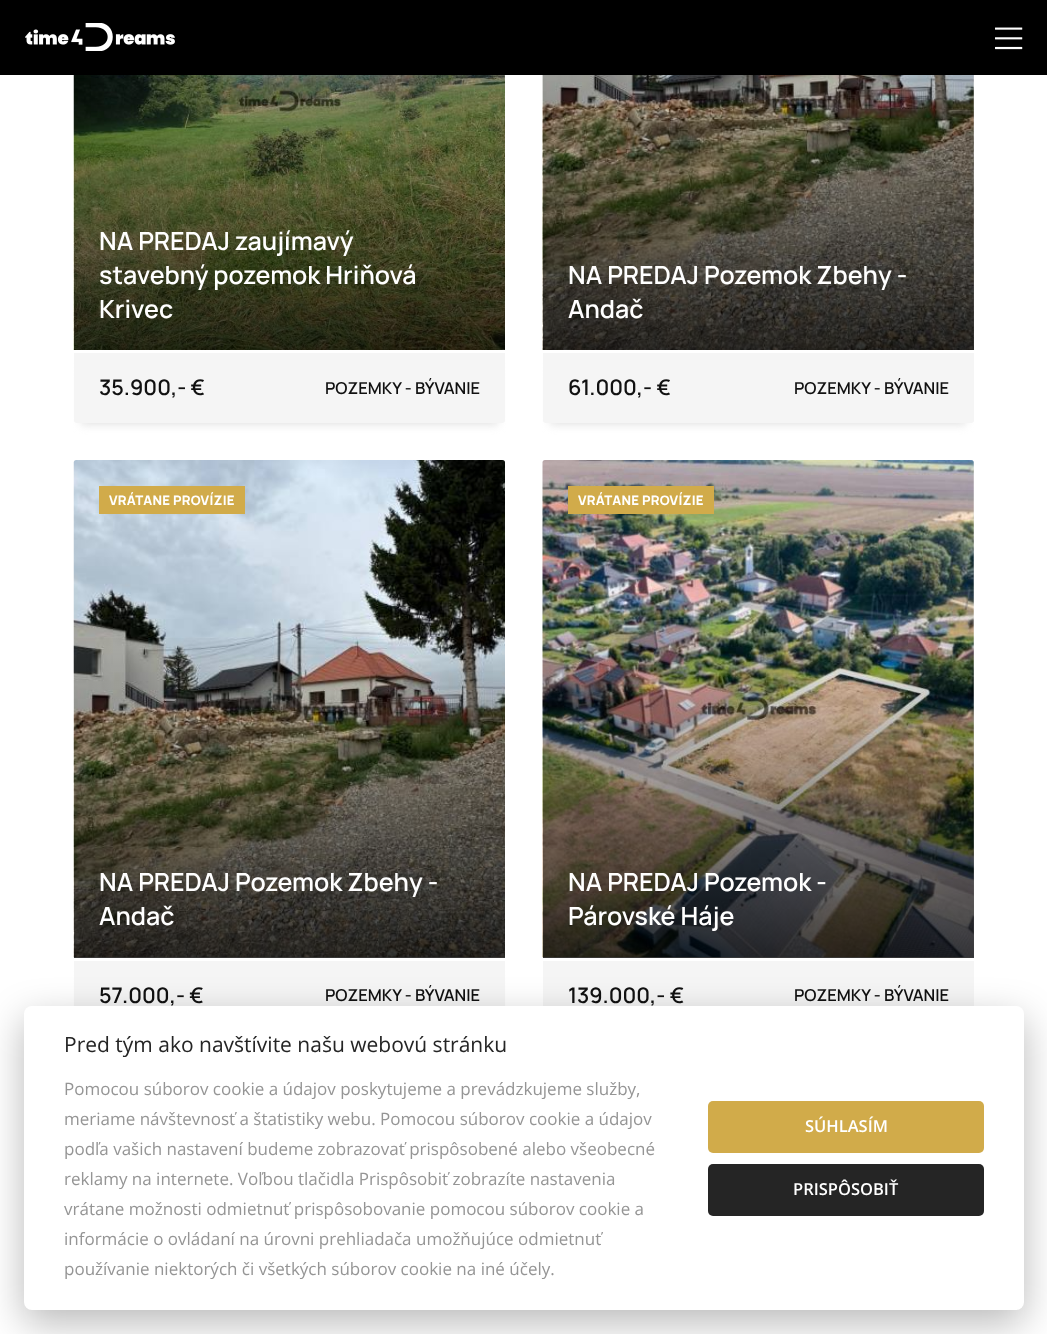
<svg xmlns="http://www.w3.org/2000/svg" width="1047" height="1334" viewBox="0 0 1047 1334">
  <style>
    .t1 { font: 600 25px Manrope; fill: #fff; }
    .t2 { font: 600 21.5px Manrope; fill: #111; }
    .t3 { font: 600 16.5px Manrope; fill: #111; }
    .t4 { font: 800 13.1px Manrope; letter-spacing: 0.25px; fill: #fff; }
    .t5 { font: 21px Open Sans; fill: #252525; }
    .t6 { font: 17px Open Sans; fill: #959595; }
    .t7 { font: 600 16.5px Open Sans; fill: #fff; }
  </style>
  <defs>
    <linearGradient id="g1" gradientUnits="userSpaceOnUse" x1="758" y1="350" x2="758" y2="21"><stop offset="0" stop-color="#000" stop-opacity="0.75"/><stop offset="1" stop-color="#000" stop-opacity="0"/></linearGradient>
    <linearGradient id="g2" gradientUnits="userSpaceOnUse" x1="289" y1="958" x2="289" y2="629"><stop offset="0" stop-color="#000" stop-opacity="0.75"/><stop offset="1" stop-color="#000" stop-opacity="0"/></linearGradient>
    <linearGradient id="g3" gradientUnits="userSpaceOnUse" x1="758" y1="958" x2="758" y2="629"><stop offset="0" stop-color="#000" stop-opacity="0.75"/><stop offset="1" stop-color="#000" stop-opacity="0"/></linearGradient>
  </defs>
  <rect width="100%" height="100%" fill="#fff"/>
  <rect x="0" y="0" width="1047" height="75" fill="#000"/>
  <image x="25" y="23" width="150" height="28" href="images/1.png"/>
  <image x="995" y="27" width="28" height="23" href="images/2.png"/>
  <image x="73" y="75" width="432" height="275" href="images/3.png"/>
  <text x="99" y="250" class="t1">NA PREDAJ zaujímavý</text>
  <text x="99" y="284" class="t1">stavebný pozemok Hriňová</text>
  <text x="99" y="318" class="t1">Krivec</text>
  <rect x="81" y="370" width="417" height="55" fill="#e4e4e4" filter="blur(4px)"/>
  <path d="M74 353H505V420.5C505 422 504 423 502.5 423H76.5C75 423 74 422 74 420.5Z" fill="#f5f5f5"/>
  <text x="99" y="395" class="t2">35.900,- €</text>
  <text x="325" y="394" class="t3">POZEMKY - BÝVANIE</text>
  <image x="542" y="75" width="432" height="275" href="images/4.png"/>
  <rect x="543" y="75" width="431" height="275" fill="url(#g1)"/>
  <text x="568" y="284" class="t1">NA PREDAJ Pozemok Zbehy -</text>
  <text x="568" y="318" class="t1">Andač</text>
  <rect x="550" y="370" width="416" height="55" fill="#e4e4e4" filter="blur(4px)"/>
  <path d="M543 353H974V420.5C974 422 973 423 971.5 423H545.5C544 423 543 422 543 420.5Z" fill="#f5f5f5"/>
  <text x="568" y="395" class="t2">61.000,- €</text>
  <text x="794" y="394" class="t3">POZEMKY - BÝVANIE</text>
  <path d="M76.5 460H502.5C504 460 505 461 505 462.5V960H74V462.5C74 461 75 460 76.5 460Z" fill="#f5f5f5"/>
  <rect x="74" y="958" width="431" height="2" fill="#fff"/>
  <image x="73" y="460" width="432" height="498" href="images/5.png"/>
  <rect x="99" y="486" width="146" height="28" fill="#d1ab4a"/>
  <text x="109" y="505" class="t4">VRÁTANE PROVÍZIE</text>
  <rect x="74" y="638" width="431" height="320" fill="url(#g2)"/>
  <text x="99" y="891" class="t1">NA PREDAJ Pozemok Zbehy -</text>
  <text x="99" y="925" class="t1">Andač</text>
  <rect x="81" y="978" width="417" height="55" fill="#e4e4e4" filter="blur(4px)"/>
  <rect x="74" y="961" width="431" height="45" fill="#f5f5f5"/>
  <text x="99" y="1003" class="t2">57.000,- €</text>
  <text x="325" y="1001" class="t3">POZEMKY - BÝVANIE</text>
  <path d="M545.5 460H971.5C973 460 974 461 974 462.5V960H543V462.5C543 461 544 460 545.5 460Z" fill="#f5f5f5"/>
  <rect x="543" y="958" width="431" height="2" fill="#fff"/>
  <image x="542" y="460" width="432" height="498" href="images/6.png"/>
  <rect x="568" y="486" width="146" height="28" fill="#d1ab4a"/>
  <text x="578" y="505" class="t4">VRÁTANE PROVÍZIE</text>
  <rect x="543" y="638" width="431" height="320" fill="url(#g3)"/>
  <text x="568" y="891" class="t1">NA PREDAJ Pozemok -</text>
  <text x="568" y="925" class="t1">Párovské Háje</text>
  <rect x="543" y="961" width="431" height="45" fill="#f5f5f5"/>
  <text x="568" y="1003" class="t2">139.000,- €</text>
  <text x="794" y="1001" class="t3">POZEMKY - BÝVANIE</text>
  <rect x="24" y="1019" width="1000" height="304" rx="8" fill="#02020347" filter="blur(19px)"/>
  <rect x="24" y="1006" width="1000" height="304" rx="8" fill="#fff"/>
  <text x="64" y="1052" class="t5">Pred tým ako navštívite našu webovú stránku</text>
  <text x="64" y="1095" class="t6">Pomocou súborov cookie a údajov poskytujeme a prevádzkujeme služby,</text>
  <text x="64" y="1125" class="t6">meriame návštevnosť a štatistiky webu. Pomocou súborov cookie a údajov</text>
  <text x="64" y="1155" class="t6">podľa vašich nastavení budeme zobrazovať prispôsobené alebo všeobecné</text>
  <text x="64" y="1185" class="t6">reklamy na internete. Voľbou tlačidla Prispôsobiť zobrazíte nastavenia</text>
  <text x="64" y="1215" class="t6">vrátane možnosti odmietnuť prispôsobovanie pomocou súborov cookie a</text>
  <text x="64" y="1245" class="t6">informácie o ovládaní na úrovni prehliadača umožňujúce odmietnuť</text>
  <text x="64" y="1275" class="t6">používanie niektorých či všetkých súborov cookie na iné účely.</text>
  <rect x="708" y="1101" width="276" height="52" rx="5" fill="#d1ab4a"/>
  <text x="805" y="1132" class="t7">SÚHLASÍM</text>
  <rect x="708" y="1164" width="276" height="52" rx="5" fill="#252525"/>
  <text x="793" y="1195" class="t7">PRISPÔSOBIŤ</text>
</svg>
